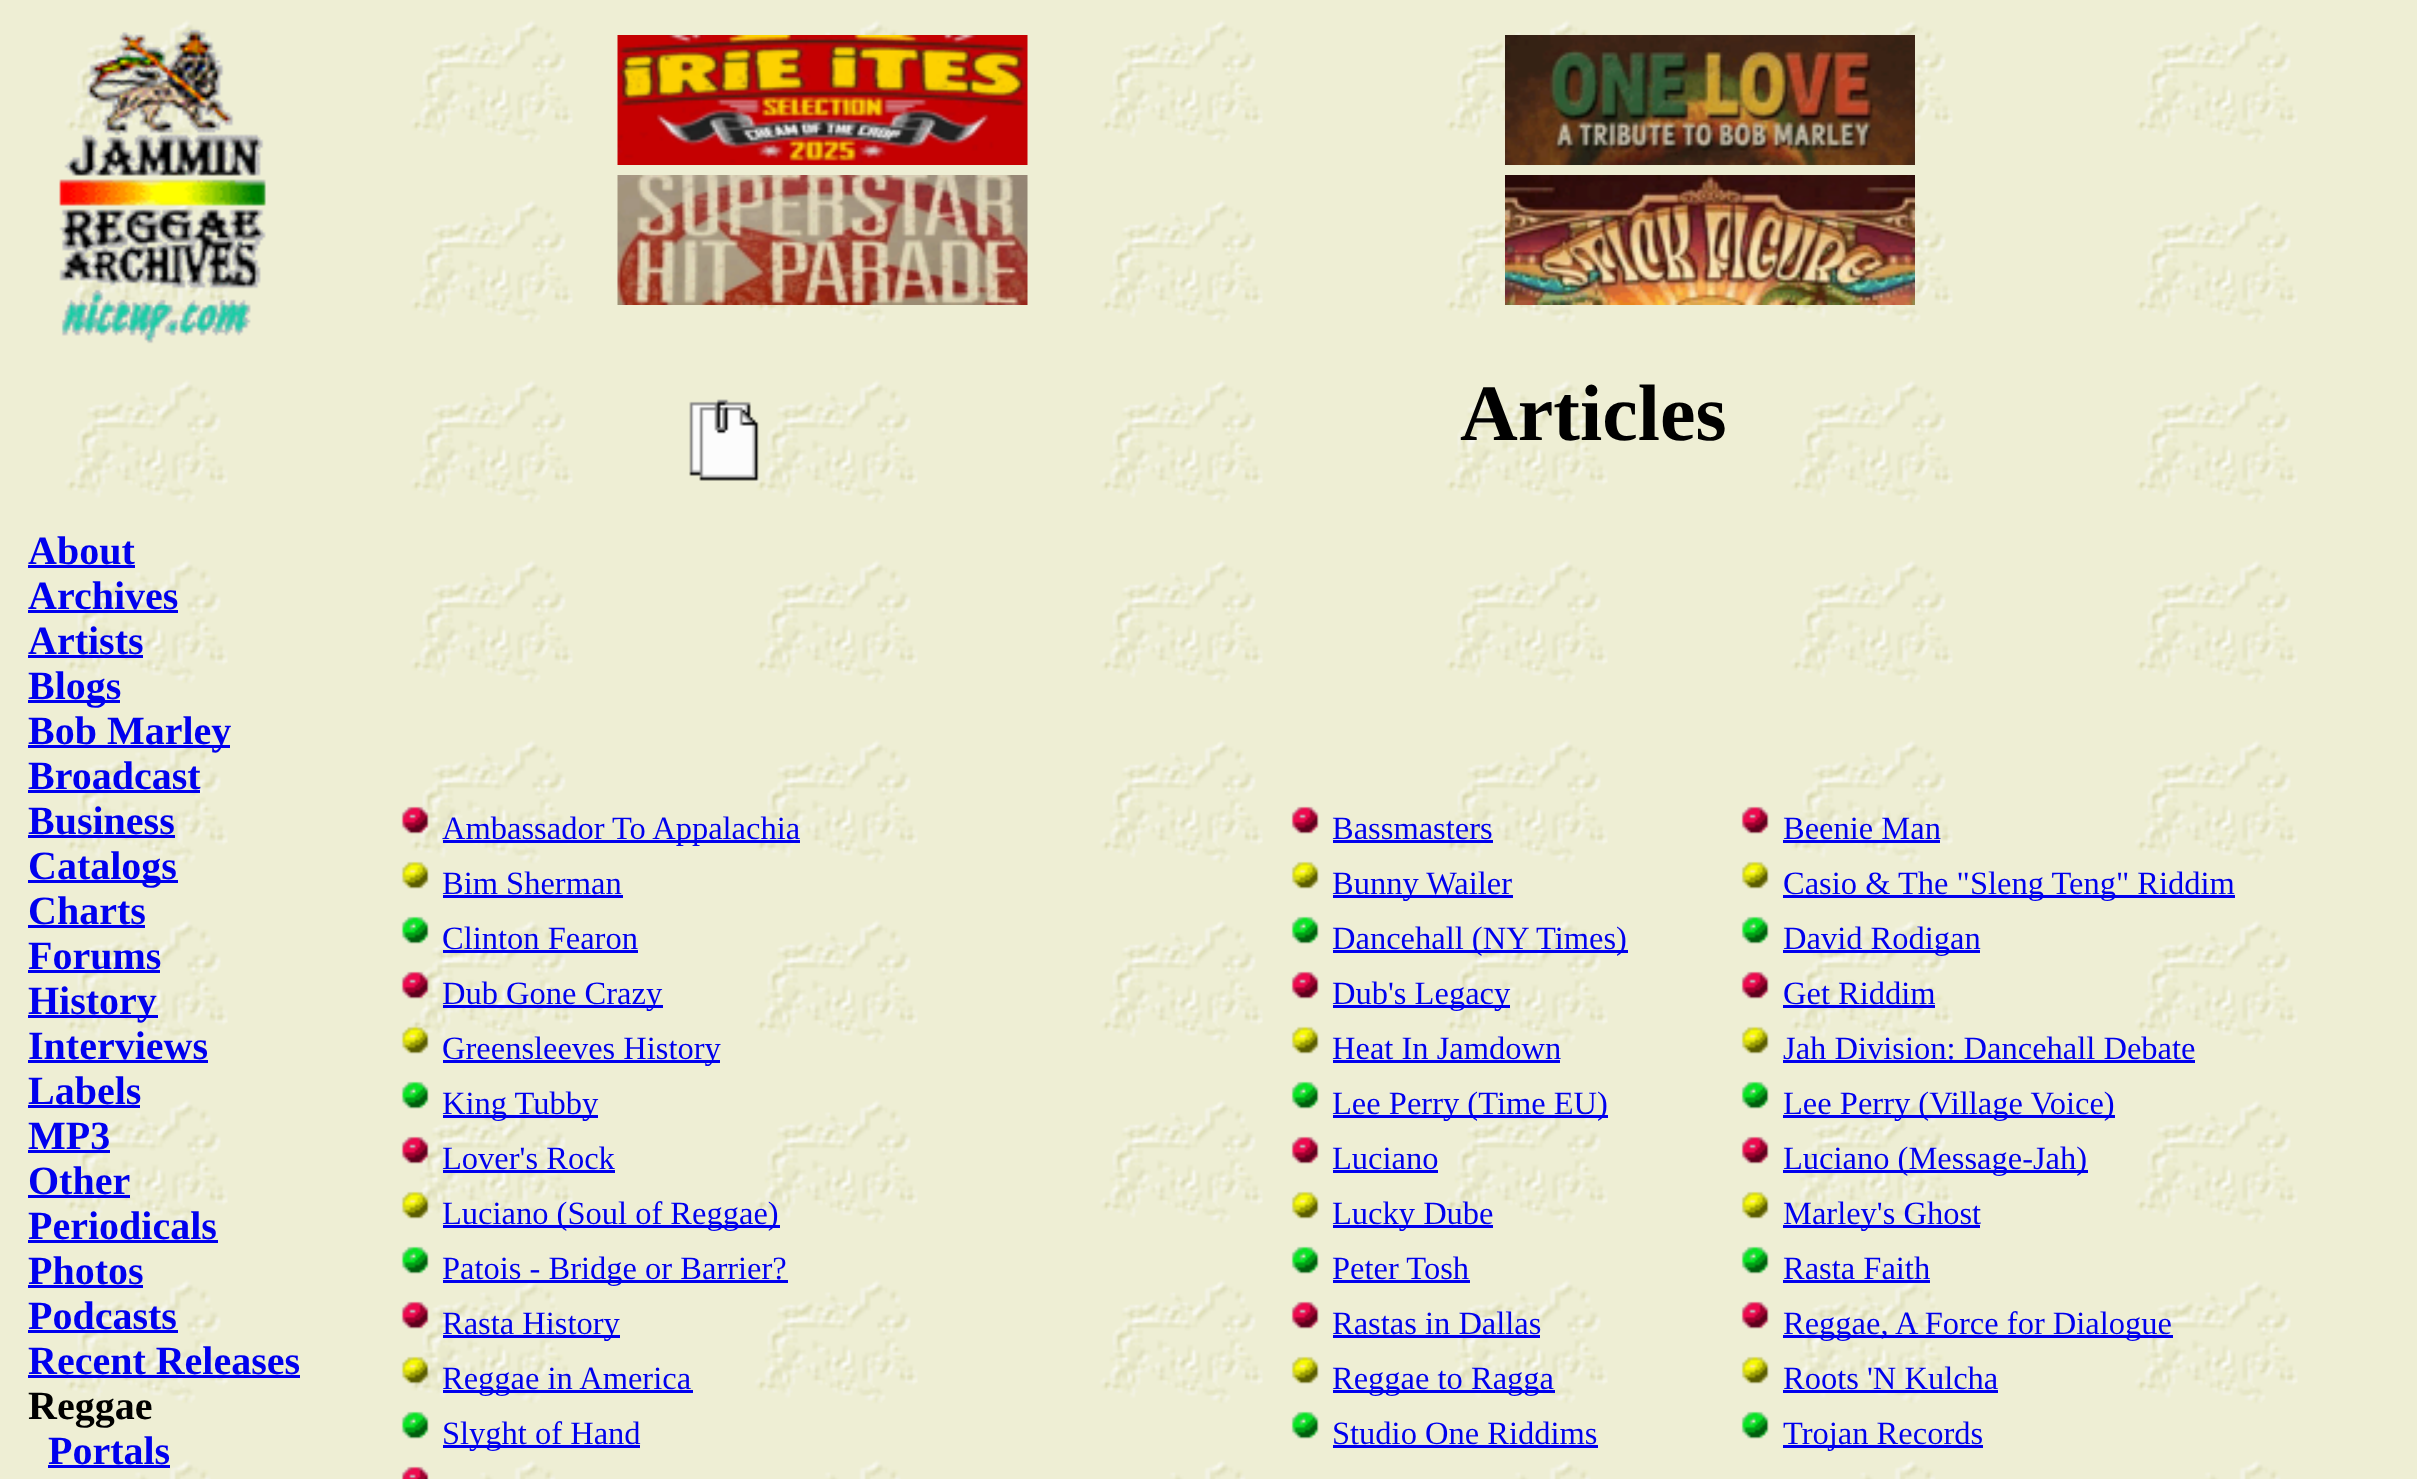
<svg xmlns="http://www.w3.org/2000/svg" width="2417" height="1479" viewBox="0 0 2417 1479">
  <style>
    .t1 { font: bold 80px Liberation Serif; fill: #000; }
    .t2 { font: bold 40px Liberation Serif; fill: #00e; }
    .t3 { font: bold 40px Liberation Serif; fill: #000; }
    .t4 { font: 32.5px Liberation Serif; fill: #00e; }
  </style>
  <rect width="100%" height="100%" fill="#fff"/>
  <image x="0" y="0" width="2417" height="1479" href="images/1.png"/>
  <image x="59" y="29" width="207" height="315" href="images/2.png"/>
  <image x="617" y="35" width="411" height="130" href="images/3.png"/>
  <image x="1505" y="35" width="410" height="130" href="images/4.png"/>
  <image x="617" y="175" width="411" height="130" href="images/5.png"/>
  <image x="1505" y="175" width="410" height="130" href="images/6.png"/>
  <image x="689" y="399" width="70" height="82" href="images/7.png"/>
  <text x="1460" y="440" class="t1">Articles</text>
  <text x="28" y="564" class="t2">About</text>
  <rect x="28" y="565" width="107" height="3" fill="#00e"/>
  <text x="28" y="609" class="t2">Archives</text>
  <rect x="28" y="610" width="150" height="3" fill="#00e"/>
  <text x="28" y="654" class="t2">Artists</text>
  <rect x="28" y="655" width="115" height="3" fill="#00e"/>
  <rect x="28" y="700" width="92" height="3" fill="#00e"/>
  <text x="28" y="699" class="t2">Blogs</text>
  <rect x="28" y="745" width="202" height="3" fill="#00e"/>
  <text x="28" y="744" class="t2">Bob Marley</text>
  <text x="28" y="789" class="t2">Broadcast</text>
  <rect x="28" y="790" width="172" height="3" fill="#00e"/>
  <text x="28" y="834" class="t2">Business</text>
  <rect x="28" y="835" width="147" height="3" fill="#00e"/>
  <rect x="28" y="880" width="150" height="3" fill="#00e"/>
  <text x="28" y="879" class="t2">Catalogs</text>
  <text x="28" y="924" class="t2">Charts</text>
  <rect x="28" y="925" width="117" height="3" fill="#00e"/>
  <text x="28" y="969" class="t2">Forums</text>
  <rect x="28" y="970" width="132" height="3" fill="#00e"/>
  <rect x="28" y="1015" width="130" height="3" fill="#00e"/>
  <text x="28" y="1014" class="t2">History</text>
  <text x="28" y="1059" class="t2">Interviews</text>
  <rect x="28" y="1060" width="180" height="3" fill="#00e"/>
  <text x="28" y="1104" class="t2">Labels</text>
  <rect x="28" y="1105" width="112" height="3" fill="#00e"/>
  <text x="28" y="1149" class="t2">MP3</text>
  <rect x="28" y="1150" width="82" height="3" fill="#00e"/>
  <text x="28" y="1194" class="t2">Other</text>
  <rect x="28" y="1195" width="102" height="3" fill="#00e"/>
  <text x="28" y="1239" class="t2">Periodicals</text>
  <rect x="28" y="1240" width="190" height="3" fill="#00e"/>
  <text x="28" y="1284" class="t2">Photos</text>
  <rect x="28" y="1285" width="115" height="3" fill="#00e"/>
  <text x="28" y="1329" class="t2">Podcasts</text>
  <rect x="28" y="1330" width="150" height="3" fill="#00e"/>
  <text x="28" y="1374" class="t2">Recent Releases</text>
  <rect x="28" y="1375" width="272" height="3" fill="#00e"/>
  <text x="28" y="1419" class="t3">Reggae</text>
  <text x="48" y="1464" class="t2">Portals</text>
  <rect x="48" y="1465" width="122" height="3" fill="#00e"/>
  <image x="401" y="806" width="28" height="28" href="images/8.png"/>
  <rect x="443" y="840" width="357" height="3" fill="#00e"/>
  <text x="442" y="839" class="t4">Ambassador To Appalachia</text>
  <image x="1291" y="806" width="28" height="28" href="images/9.png"/>
  <text x="1332" y="839" class="t4">Bassmasters</text>
  <rect x="1333" y="840" width="160" height="3" fill="#00e"/>
  <image x="1741" y="806" width="28" height="28" href="images/9.png"/>
  <text x="1783" y="839" class="t4">Beenie Man</text>
  <rect x="1783" y="840" width="157" height="3" fill="#00e"/>
  <image x="401" y="861" width="28" height="28" href="images/10.png"/>
  <text x="442" y="894" class="t4">Bim Sherman</text>
  <rect x="443" y="895" width="180" height="3" fill="#00e"/>
  <image x="1291" y="861" width="28" height="28" href="images/11.png"/>
  <rect x="1333" y="895" width="180" height="3" fill="#00e"/>
  <text x="1332" y="894" class="t4">Bunny Wailer</text>
  <image x="1741" y="861" width="28" height="28" href="images/11.png"/>
  <rect x="1783" y="895" width="452" height="3" fill="#00e"/>
  <text x="1783" y="894" class="t4">Casio &amp; The "Sleng Teng" Riddim</text>
  <image x="401" y="916" width="28" height="28" href="images/12.png"/>
  <text x="442" y="949" class="t4">Clinton Fearon</text>
  <rect x="443" y="950" width="195" height="3" fill="#00e"/>
  <image x="1291" y="916" width="28" height="28" href="images/13.png"/>
  <rect x="1333" y="950" width="295" height="3" fill="#00e"/>
  <text x="1332" y="949" class="t4">Dancehall (NY Times)</text>
  <image x="1741" y="916" width="28" height="28" href="images/13.png"/>
  <rect x="1783" y="950" width="197" height="3" fill="#00e"/>
  <text x="1783" y="949" class="t4">David Rodigan</text>
  <image x="401" y="971" width="28" height="28" href="images/14.png"/>
  <rect x="443" y="1005" width="220" height="3" fill="#00e"/>
  <text x="442" y="1004" class="t4">Dub Gone Crazy</text>
  <image x="1291" y="971" width="28" height="28" href="images/9.png"/>
  <rect x="1333" y="1005" width="177" height="3" fill="#00e"/>
  <text x="1332" y="1004" class="t4">Dub's Legacy</text>
  <image x="1741" y="971" width="28" height="28" href="images/9.png"/>
  <text x="1783" y="1004" class="t4">Get Riddim</text>
  <rect x="1783" y="1005" width="152" height="3" fill="#00e"/>
  <image x="401" y="1026" width="28" height="28" href="images/15.png"/>
  <rect x="443" y="1060" width="277" height="3" fill="#00e"/>
  <text x="442" y="1059" class="t4">Greensleeves History</text>
  <image x="1291" y="1026" width="28" height="28" href="images/16.png"/>
  <text x="1332" y="1059" class="t4">Heat In Jamdown</text>
  <rect x="1333" y="1060" width="227" height="3" fill="#00e"/>
  <image x="1741" y="1026" width="28" height="28" href="images/16.png"/>
  <text x="1783" y="1059" class="t4">Jah Division: Dancehall Debate</text>
  <rect x="1783" y="1060" width="412" height="3" fill="#00e"/>
  <image x="401" y="1081" width="28" height="28" href="images/12.png"/>
  <rect x="443" y="1115" width="155" height="3" fill="#00e"/>
  <text x="442" y="1114" class="t4">King Tubby</text>
  <image x="1291" y="1081" width="28" height="28" href="images/13.png"/>
  <rect x="1333" y="1115" width="275" height="3" fill="#00e"/>
  <text x="1332" y="1114" class="t4">Lee Perry (Time EU)</text>
  <image x="1741" y="1081" width="28" height="28" href="images/13.png"/>
  <rect x="1783" y="1115" width="332" height="3" fill="#00e"/>
  <text x="1783" y="1114" class="t4">Lee Perry (Village Voice)</text>
  <image x="401" y="1136" width="28" height="28" href="images/17.png"/>
  <text x="442" y="1169" class="t4">Lover's Rock</text>
  <rect x="443" y="1170" width="172" height="3" fill="#00e"/>
  <image x="1291" y="1136" width="28" height="28" href="images/9.png"/>
  <text x="1332" y="1169" class="t4">Luciano</text>
  <rect x="1333" y="1170" width="105" height="3" fill="#00e"/>
  <image x="1741" y="1136" width="28" height="28" href="images/9.png"/>
  <rect x="1783" y="1170" width="305" height="3" fill="#00e"/>
  <text x="1783" y="1169" class="t4">Luciano (Message-Jah)</text>
  <image x="401" y="1191" width="28" height="28" href="images/18.png"/>
  <rect x="443" y="1225" width="337" height="3" fill="#00e"/>
  <text x="442" y="1224" class="t4">Luciano (Soul of Reggae)</text>
  <image x="1291" y="1191" width="28" height="28" href="images/11.png"/>
  <rect x="1333" y="1225" width="160" height="3" fill="#00e"/>
  <text x="1332" y="1224" class="t4">Lucky Dube</text>
  <image x="1741" y="1191" width="28" height="28" href="images/11.png"/>
  <rect x="1783" y="1225" width="197" height="3" fill="#00e"/>
  <text x="1783" y="1224" class="t4">Marley's Ghost</text>
  <image x="401" y="1246" width="28" height="28" href="images/12.png"/>
  <rect x="443" y="1280" width="345" height="3" fill="#00e"/>
  <text x="442" y="1279" class="t4">Patois - Bridge or Barrier?</text>
  <image x="1291" y="1246" width="28" height="28" href="images/13.png"/>
  <text x="1332" y="1279" class="t4">Peter Tosh</text>
  <rect x="1333" y="1280" width="137" height="3" fill="#00e"/>
  <image x="1741" y="1246" width="28" height="28" href="images/13.png"/>
  <text x="1783" y="1279" class="t4">Rasta Faith</text>
  <rect x="1783" y="1280" width="147" height="3" fill="#00e"/>
  <image x="401" y="1301" width="28" height="28" href="images/19.png"/>
  <rect x="443" y="1335" width="177" height="3" fill="#00e"/>
  <text x="442" y="1334" class="t4">Rasta History</text>
  <image x="1291" y="1301" width="28" height="28" href="images/9.png"/>
  <text x="1332" y="1334" class="t4">Rastas in Dallas</text>
  <rect x="1333" y="1335" width="207" height="3" fill="#00e"/>
  <image x="1741" y="1301" width="28" height="28" href="images/9.png"/>
  <rect x="1783" y="1335" width="390" height="3" fill="#00e"/>
  <text x="1783" y="1334" class="t4">Reggae, A Force for Dialogue</text>
  <image x="401" y="1356" width="28" height="28" href="images/20.png"/>
  <rect x="443" y="1390" width="250" height="3" fill="#00e"/>
  <text x="442" y="1389" class="t4">Reggae in America</text>
  <image x="1291" y="1356" width="28" height="28" href="images/11.png"/>
  <rect x="1333" y="1390" width="222" height="3" fill="#00e"/>
  <text x="1332" y="1389" class="t4">Reggae to Ragga</text>
  <image x="1741" y="1356" width="28" height="28" href="images/11.png"/>
  <text x="1783" y="1389" class="t4">Roots 'N Kulcha</text>
  <rect x="1783" y="1390" width="215" height="3" fill="#00e"/>
  <image x="401" y="1411" width="28" height="28" href="images/12.png"/>
  <rect x="443" y="1445" width="197" height="3" fill="#00e"/>
  <text x="442" y="1444" class="t4">Slyght of Hand</text>
  <image x="1291" y="1411" width="28" height="28" href="images/13.png"/>
  <text x="1332" y="1444" class="t4">Studio One Riddims</text>
  <rect x="1333" y="1445" width="265" height="3" fill="#00e"/>
  <image x="1741" y="1411" width="28" height="28" href="images/13.png"/>
  <rect x="1783" y="1445" width="200" height="3" fill="#00e"/>
  <text x="1783" y="1444" class="t4">Trojan Records</text>
  <image x="401" y="1466" width="28" height="13" href="images/21.png"/>
</svg>
